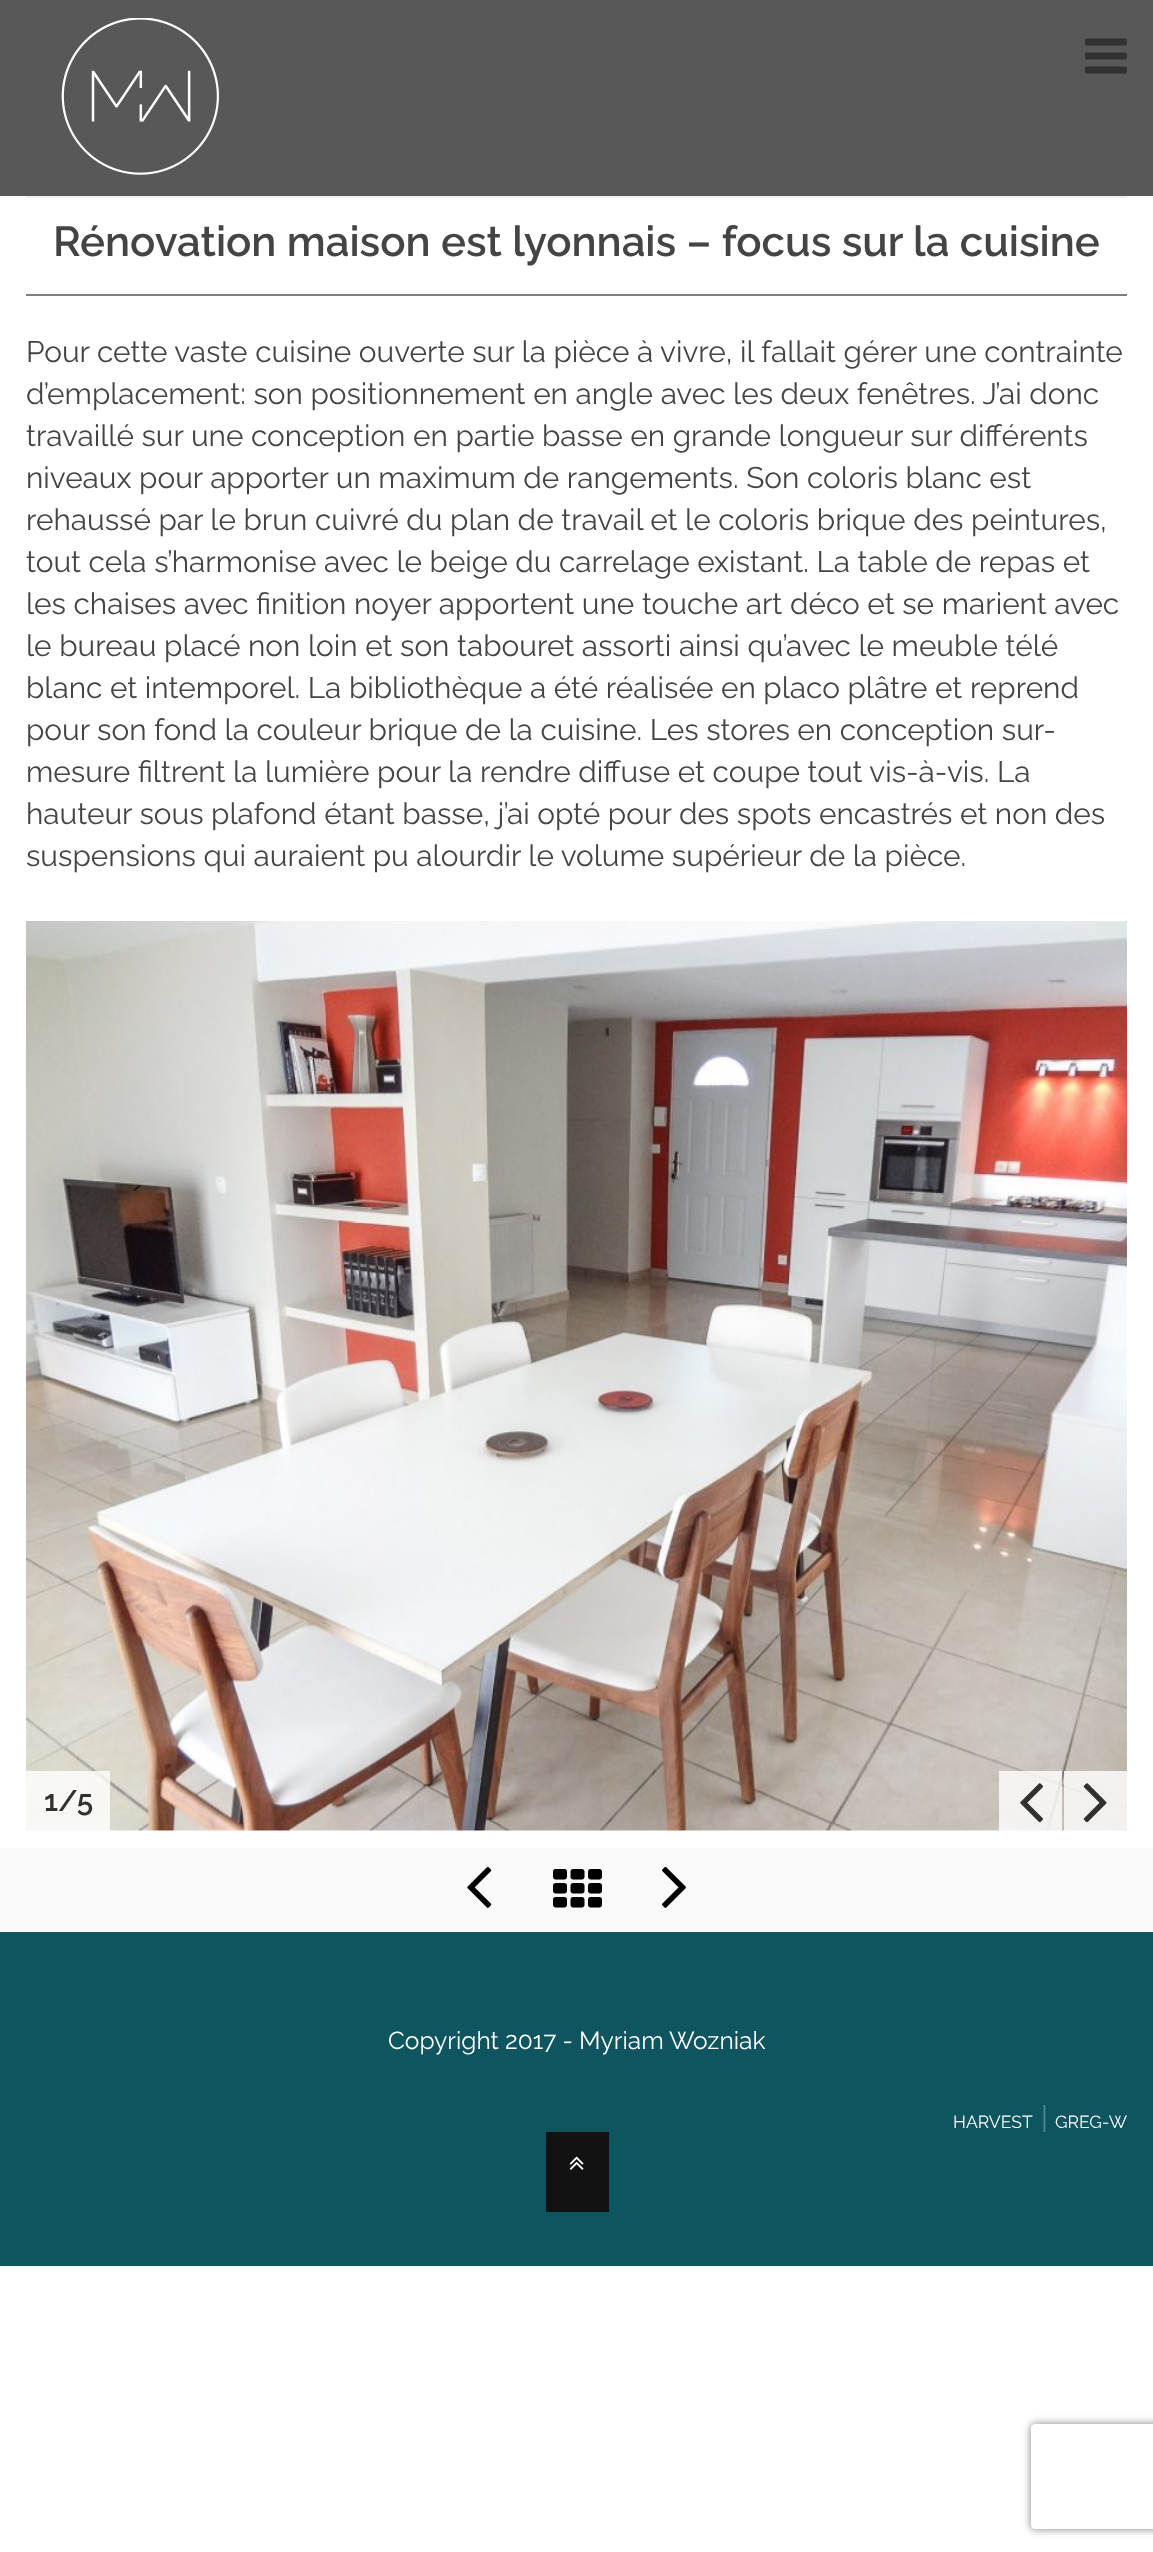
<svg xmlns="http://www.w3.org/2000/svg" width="1153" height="2552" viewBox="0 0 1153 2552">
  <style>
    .t1 { font: 600 42px Raleway; fill: #444; }
    .t2 { font: 29.75px Raleway; fill: #444; }
    .t3 { font: 600 29.75px Raleway; fill: #323131; }
    .t4 { font: 24.5px Raleway; fill: #fff; }
    .t5 { font: 17.5px Raleway; fill: #fff; }
    .t6 { font: 29.75px Raleway; fill: #568890; }
  </style>
  <defs>
    <clipPath id="clip1"><path d="M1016 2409H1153V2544H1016ZM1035 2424H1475C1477 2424 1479 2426 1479 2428V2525C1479 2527 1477 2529 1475 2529H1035C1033 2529 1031 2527 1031 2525V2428C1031 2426 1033 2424 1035 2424Z" clip-rule="evenodd"/></clipPath>
  </defs>
  <rect width="100%" height="100%" fill="#fff"/>
  <rect x="0" y="0" width="1153" height="196" fill="#585858"/>
  <image x="61" y="18" width="158" height="157" href="images/1.png"/>
  <image x="1085" y="38" width="42" height="36" href="images/2.png"/>
  <rect x="26" y="196" width="1101" height="2" fill="#efefef"/>
  <rect x="26" y="294" width="1101" height="2" fill="#808080"/>
  <text x="53" y="256" class="t1">Rénovation maison est lyonnais – focus sur la cuisine</text>
  <text x="26" y="362" class="t2">Pour cette vaste cuisine ouverte sur la pièce à vivre, il fallait gérer une contrainte</text>
  <text x="26" y="404" class="t2">d’emplacement: son positionnement en angle avec les deux fenêtres. J’ai donc</text>
  <text x="26" y="446" class="t2">travaillé sur une conception en partie basse en grande longueur sur différents</text>
  <text x="26" y="488" class="t2">niveaux pour apporter un maximum de rangements. Son coloris blanc est</text>
  <text x="26" y="530" class="t2">rehaussé par le brun cuivré du plan de travail et le coloris brique des peintures,</text>
  <text x="26" y="572" class="t2">tout cela s’harmonise avec le beige du carrelage existant. La table de repas et</text>
  <text x="26" y="614" class="t2">les chaises avec finition noyer apportent une touche art déco et se marient avec</text>
  <text x="26" y="656" class="t2">le bureau placé non loin et son tabouret assorti ainsi qu’avec le meuble télé</text>
  <text x="26" y="698" class="t2">blanc et intemporel. La bibliothèque a été réalisée en placo plâtre et reprend</text>
  <text x="26" y="740" class="t2">pour son fond la couleur brique de la cuisine. Les stores en conception sur-</text>
  <text x="26" y="782" class="t2">mesure filtrent la lumière pour la rendre diffuse et coupe tout vis-à-vis. La</text>
  <text x="26" y="824" class="t2">hauteur sous plafond étant basse, j’ai opté pour des spots encastrés et non des</text>
  <text x="26" y="866" class="t2">suspensions qui auraient pu alourdir le volume supérieur de la pièce.</text>
  <image x="26" y="921" width="1101" height="910" href="images/3.png"/>
  <rect x="999" y="1771" width="63" height="60" fill="#ffffffcc"/>
  <image x="1020" y="1783" width="23" height="40" href="images/4.png"/>
  <rect x="1064" y="1771" width="63" height="60" fill="#ffffffcc"/>
  <image x="1083" y="1783" width="24" height="40" href="images/5.png"/>
  <rect x="26" y="1771" width="84" height="60" fill="#ffffffcc"/>
  <text x="44" y="1811" class="t3">1/5</text>
  <rect x="0" y="1848" width="1153" height="84" fill="#f9f9f9"/>
  <image x="467" y="1866" width="25" height="42" href="images/6.png"/>
  <image x="553" y="1869" width="49" height="39" href="images/7.png"/>
  <image x="662" y="1866" width="24" height="42" href="images/8.png"/>
  <rect x="0" y="1932" width="1153" height="334" fill="#0e5560"/>
  <text x="388" y="2049" class="t4">Copyright 2017 - Myriam Wozniak</text>
  <text x="953" y="2128" class="t5">HARVEST</text>
  <text x="1041" y="2128" class="t6">|</text>
  <text x="1055" y="2128" class="t5">GREG-W</text>
  <rect x="546" y="2132" width="63" height="80" fill="#121212"/>
  <image x="569" y="2156" width="15" height="14" href="images/9.png"/>
  <g clip-path="url(#clip1)">
    <rect x="1031" y="2424" width="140" height="105" rx="4" fill="#808080" filter="blur(4.5px)"/>
  </g>
</svg>
